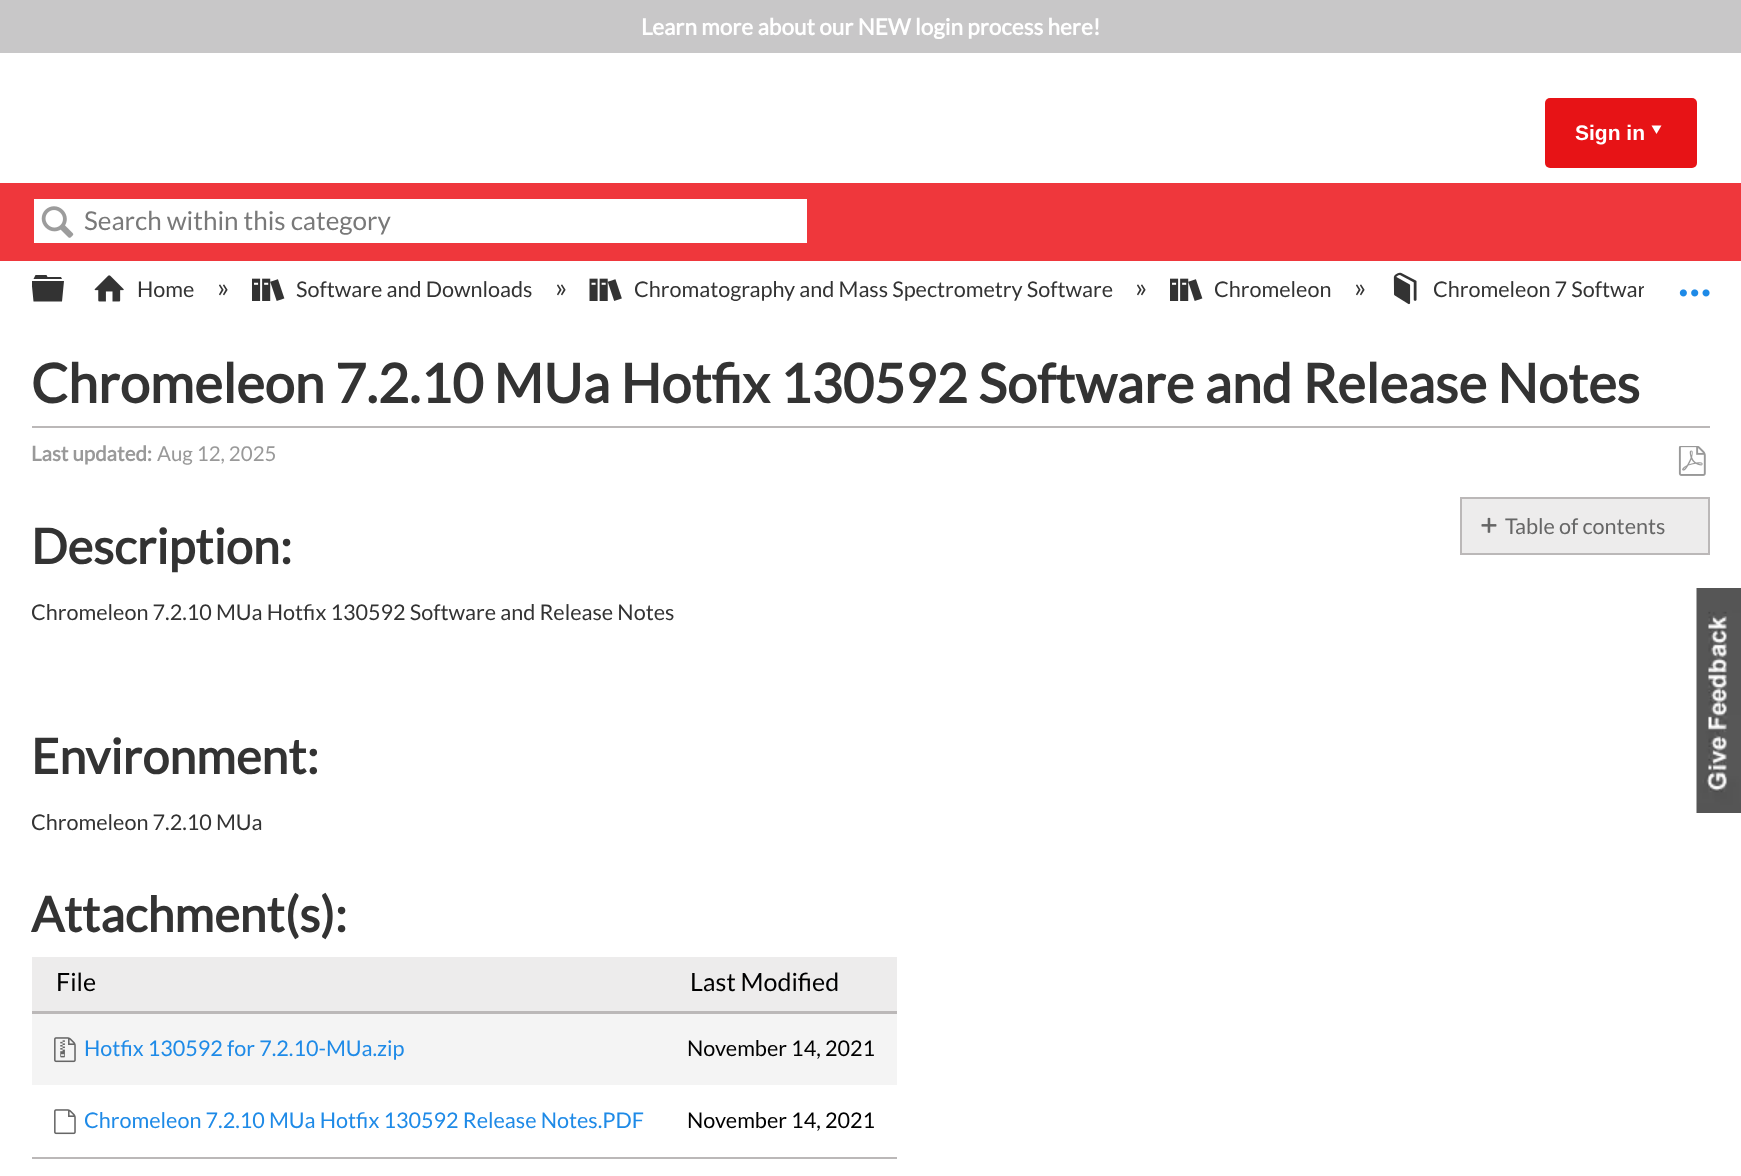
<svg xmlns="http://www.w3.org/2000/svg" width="1741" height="1176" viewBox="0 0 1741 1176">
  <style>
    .t1 { font: bold 22.5px Lato; fill: #fff; }
    .t2 { font: bold 21px Liberation Sans; fill: #fff; }
    .t3 { font: 26px Lato; fill: #797979; }
    .t4 { font: 21.6px Lato; fill: #333; }
    .t5 { font: 27px Lato; fill: #333; }
    .t6 { font: bold 54px Lato; fill: #333; }
    .t7 { font: bold 20.5px Lato; fill: #999; }
    .t8 { font: 20.5px Lato; fill: #999; }
    .t9 { font: bold 48.5px Lato; fill: #333; }
    .t10 { font: 25px Lato; fill: #000; }
    .t11 { font: 21.6px Lato; fill: #1e8ae7; }
    .t12 { font: 21.6px Lato; fill: #000; }
    .t13 { font: 21.6px Lato; fill: #666; }
  </style>
  <defs>
    <clipPath id="clip1"><rect x="32" y="261" width="37" height="50"/></clipPath>
    <clipPath id="clip2"><rect x="83" y="267" width="1561" height="48"/></clipPath>
  </defs>
  <rect width="100%" height="100%" fill="#fff"/>
  <rect x="0" y="0" width="1741" height="53" fill="#c8c7c8"/>
  <text x="641" y="35" class="t1">Learn more about our NEW login process here!</text>
  <rect x="1545" y="98" width="152" height="70" rx="5" fill="#e71316"/>
  <text x="1575" y="140" class="t2">Sign in</text>
  <path d="M1661.5 125.5H1651.5L1656.5 134Z" fill="#fff"/>
  <rect x="0" y="183" width="1741" height="78" fill="#ef373c"/>
  <rect x="34" y="199" width="773" height="44" fill="#fff"/>
  <image x="41" y="206" width="33" height="32" href="images/1.png"/>
  <text x="84" y="230" class="t3">Search within this category</text>
  <g clip-path="url(#clip1)">
    <path d="M31.5 281H64L62 301.5H33.5ZM61 277L62 279H33.5L35.5 275H46.5L47.5 277Z" fill="#333"/>
  </g>
  <image x="94" y="275" width="30" height="27" href="images/2.png"/>
  <text x="137" y="297" class="t4">Home</text>
  <text x="217" y="297" class="t5">»</text>
  <image x="252" y="278" width="33" height="23" href="images/3.png"/>
  <text x="296" y="297" class="t4">Software and Downloads</text>
  <text x="555" y="297" class="t5">»</text>
  <image x="589" y="278" width="33" height="23" href="images/4.png"/>
  <text x="634" y="297" class="t4">Chromatography and Mass Spectrometry Software</text>
  <text x="1135" y="297" class="t5">»</text>
  <image x="1170" y="278" width="33" height="23" href="images/3.png"/>
  <text x="1214" y="297" class="t4">Chromeleon</text>
  <text x="1354" y="297" class="t5">»</text>
  <image x="1393" y="272" width="24" height="33" href="images/5.png"/>
  <g clip-path="url(#clip2)">
    <text x="1433" y="297" class="t4">Chromeleon 7 Softwar</text>
  </g>
  <image x="1679" y="289" width="31" height="8" href="images/6.png"/>
  <rect x="32" y="426" width="1678" height="2" fill="#bbb8b8"/>
  <text x="31" y="403" class="t6">Chromeleon 7.2.10 MUa Hotfix 130592 Software and Release Notes</text>
  <text x="31" y="461" class="t7">Last updated:</text>
  <text x="157" y="461" class="t8">Aug 12, 2025</text>
  <image x="1678" y="446" width="28" height="30" href="images/7.png"/>
  <text x="31" y="564" class="t9">Description:</text>
  <text x="31" y="620" class="t4">Chromeleon 7.2.10 MUa Hotfix 130592 Software and Release Notes</text>
  <text x="31" y="774" class="t9">Environment:</text>
  <text x="31" y="830" class="t4">Chromeleon 7.2.10 MUa</text>
  <text x="31" y="932" class="t9">Attachment(s):</text>
  <rect x="32" y="1157" width="865" height="2" fill="#bbb8b8"/>
  <rect x="32" y="957" width="865" height="54" fill="#edecec"/>
  <rect x="32" y="1011" width="865" height="3" fill="#bbb8b8"/>
  <text x="56" y="991" class="t10">File</text>
  <text x="690" y="991" class="t10">Last Modified</text>
  <rect x="32" y="1014" width="865" height="71" fill="#f4f4f4"/>
  <image x="54" y="1037" width="22" height="26" href="images/8.png"/>
  <text x="84" y="1056" class="t11">Hotfix 130592 for 7.2.10-MUa.zip</text>
  <text x="687" y="1056" class="t12">November 14, 2021</text>
  <image x="54" y="1109" width="22" height="26" href="images/9.png"/>
  <text x="84" y="1128" class="t11">Chromeleon 7.2.10 MUa Hotfix 130592 Release Notes.PDF</text>
  <text x="687" y="1128" class="t12">November 14, 2021</text>
  <rect x="1461" y="498" width="248" height="56" fill="#edecec" stroke="#bbb8b8" stroke-width="2"/>
  <image x="1481" y="517" width="16" height="16" href="images/10.png"/>
  <text x="1505" y="534" class="t13">Table of contents</text>
  <image x="1696" y="588" width="45" height="225" href="images/11.png"/>
</svg>
